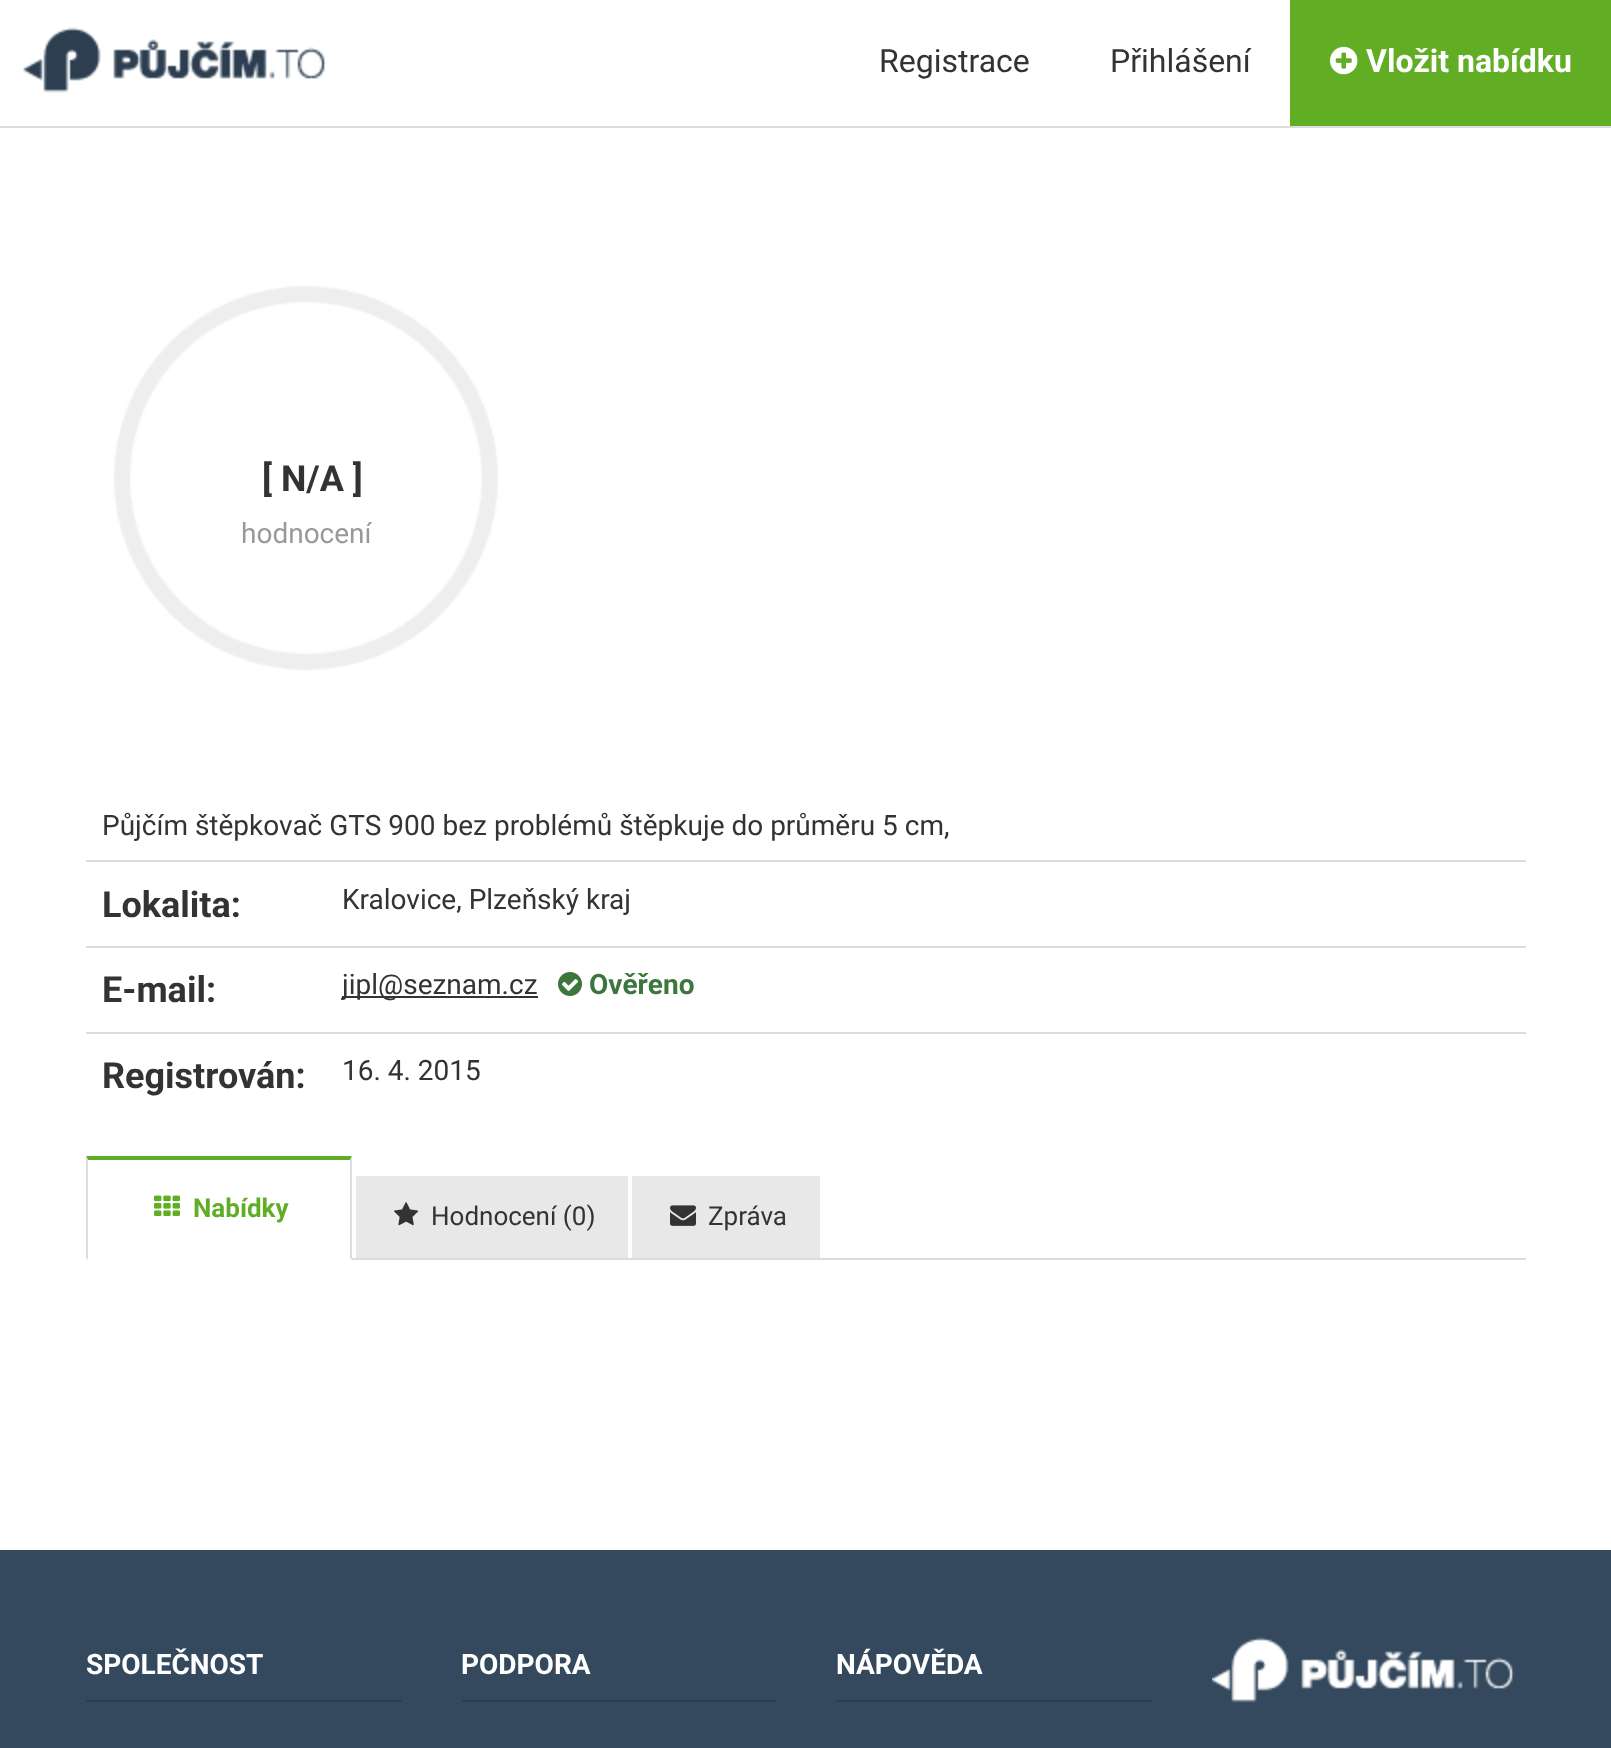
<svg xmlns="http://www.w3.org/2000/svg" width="1611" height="1748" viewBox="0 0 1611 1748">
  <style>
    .t1 { font: 32px Roboto; fill: #333; }
    .t2 { font: bold 32px Roboto; fill: #fff; }
    .t3 { font: bold 36px Roboto; fill: #333; }
    .t4 { font: 28px Roboto; fill: #999; }
    .t5 { font: 28px Roboto; fill: #333; }
    .t6 { font: bold 28px Roboto; fill: #3c763d; }
    .t7 { font: bold 26px Roboto; fill: #61ae24; }
    .t8 { font: 26px Roboto; fill: #333; }
    .t9 { font: bold 28px Roboto; fill: #fff; }
  </style>
  <rect width="100%" height="100%" fill="#34495e"/>
  <rect x="0" y="0" width="1290" height="126" fill="#fff"/>
  <rect x="0" y="126" width="1611" height="2" fill="#ddd"/>
  <image x="23" y="27" width="303" height="66" href="images/1.png"/>
  <text x="879" y="72" class="t1">Registrace</text>
  <text x="1110" y="72" class="t1">Přihlášení</text>
  <rect x="1290" y="0" width="321" height="126" fill="#61ae24"/>
  <image x="1330" y="46" width="28" height="29" href="images/2.png"/>
  <text x="1366" y="72" class="t2">Vložit nabídku</text>
  <rect x="0" y="128" width="1611" height="1422" fill="#fff"/>
  <image x="113" y="285" width="386" height="386" href="images/3.png"/>
  <text x="262" y="491" class="t3">[ N/A ]</text>
  <text x="241" y="543" class="t4">hodnocení</text>
  <rect x="86" y="860" width="1440" height="2" fill="#ddd"/>
  <text x="102" y="835" class="t5">Půjčím štěpkovač GTS 900 bez problémů štěpkuje do průměru 5 cm,</text>
  <rect x="86" y="946" width="1440" height="2" fill="#ddd"/>
  <text x="102" y="917" class="t3">Lokalita:</text>
  <text x="342" y="909" class="t5">Kralovice, Plzeňský kraj</text>
  <rect x="86" y="1032" width="1440" height="2" fill="#ddd"/>
  <text x="102" y="1002" class="t3">E-mail:</text>
  <rect x="342" y="996" width="196" height="2" fill="#333"/>
  <text x="342" y="994" class="t5">jipl@seznam.cz</text>
  <image x="558" y="972" width="24" height="24" href="images/4.png"/>
  <text x="589" y="994" class="t6">Ověřeno</text>
  <text x="102" y="1088" class="t3">Registrován:</text>
  <text x="342" y="1080" class="t5">16. 4. 2015</text>
  <rect x="352" y="1258" width="1174" height="2" fill="#ddd"/>
  <path d="M86 1156H352L350 1160H88Z" fill="#61ae24"/>
  <path d="M352 1156V1260L350 1258V1160Z" fill="#ddd"/>
  <path d="M86 1260V1156L88 1160V1258Z" fill="#ddd"/>
  <image x="154" y="1195" width="26" height="21" href="images/5.png"/>
  <text x="193" y="1217" class="t7">Nabídky</text>
  <rect x="356" y="1176" width="272" height="82" fill="#e8e8e8"/>
  <image x="394" y="1202" width="25" height="24" href="images/6.png"/>
  <text x="431" y="1225" class="t8">Hodnocení (0)</text>
  <rect x="632" y="1176" width="188" height="82" fill="#e8e8e8"/>
  <image x="670" y="1205" width="26" height="21" href="images/7.png"/>
  <text x="708" y="1225" class="t8">Zpráva</text>
  <rect x="86" y="1700" width="316" height="2" fill="#2c3e50"/>
  <text x="86" y="1674" class="t9">SPOLEČNOST</text>
  <rect x="462" y="1700" width="314" height="2" fill="#2c3e50"/>
  <text x="461" y="1674" class="t9">PODPORA</text>
  <rect x="836" y="1700" width="316" height="2" fill="#2c3e50"/>
  <text x="836" y="1674" class="t9">NÁPOVĚDA</text>
  <image x="1212" y="1637" width="303" height="66" href="images/8.png"/>
</svg>
